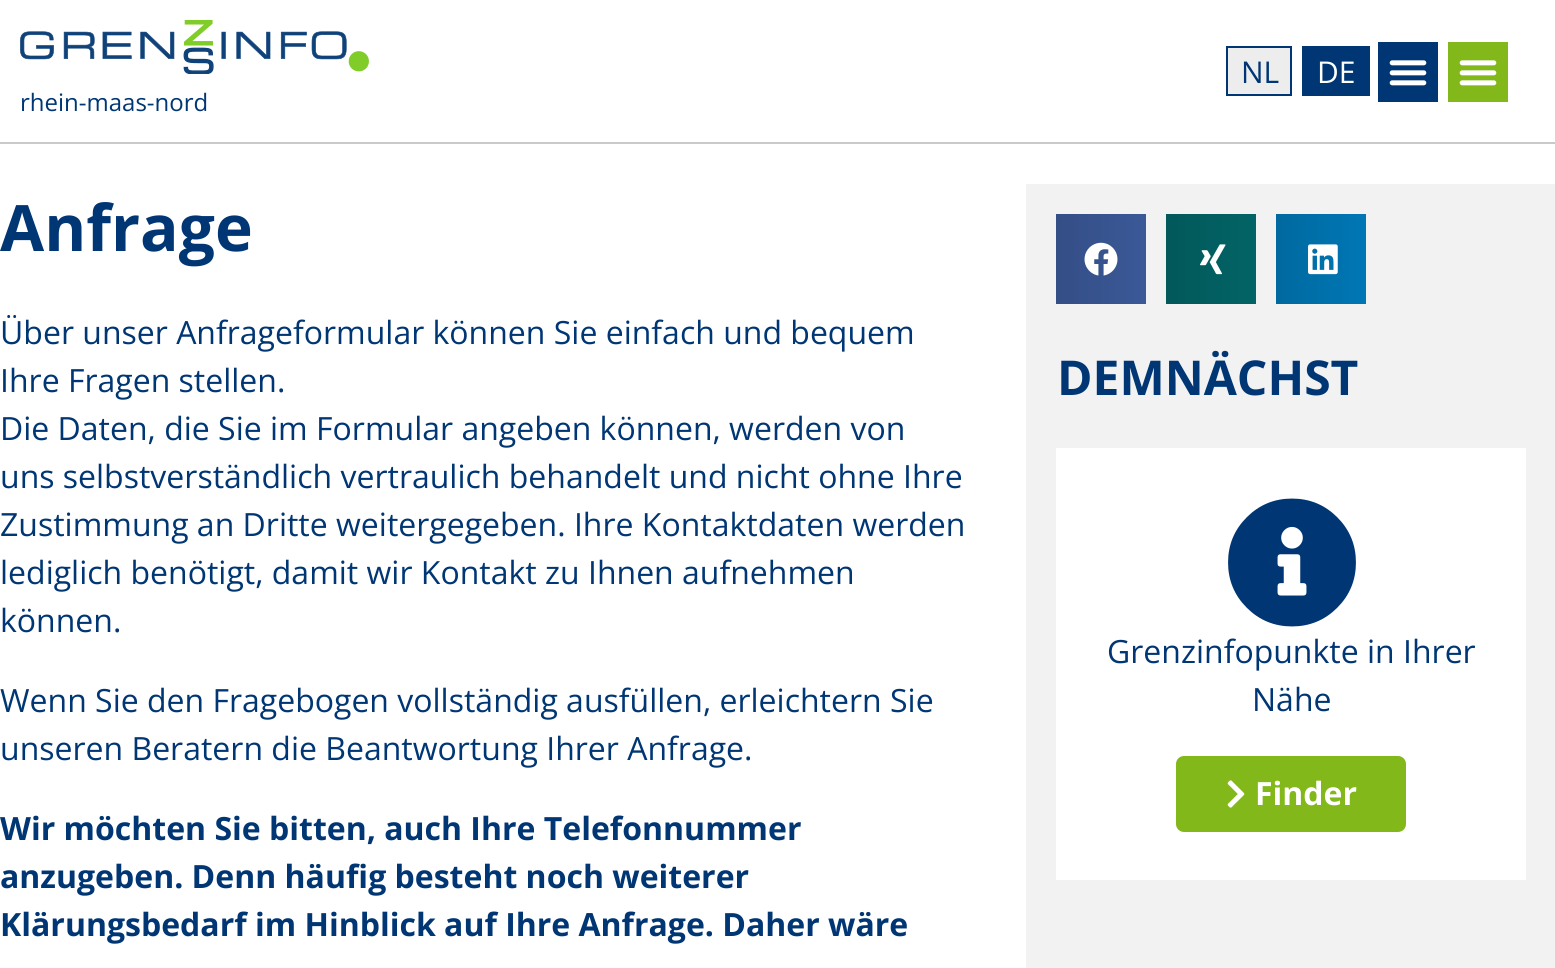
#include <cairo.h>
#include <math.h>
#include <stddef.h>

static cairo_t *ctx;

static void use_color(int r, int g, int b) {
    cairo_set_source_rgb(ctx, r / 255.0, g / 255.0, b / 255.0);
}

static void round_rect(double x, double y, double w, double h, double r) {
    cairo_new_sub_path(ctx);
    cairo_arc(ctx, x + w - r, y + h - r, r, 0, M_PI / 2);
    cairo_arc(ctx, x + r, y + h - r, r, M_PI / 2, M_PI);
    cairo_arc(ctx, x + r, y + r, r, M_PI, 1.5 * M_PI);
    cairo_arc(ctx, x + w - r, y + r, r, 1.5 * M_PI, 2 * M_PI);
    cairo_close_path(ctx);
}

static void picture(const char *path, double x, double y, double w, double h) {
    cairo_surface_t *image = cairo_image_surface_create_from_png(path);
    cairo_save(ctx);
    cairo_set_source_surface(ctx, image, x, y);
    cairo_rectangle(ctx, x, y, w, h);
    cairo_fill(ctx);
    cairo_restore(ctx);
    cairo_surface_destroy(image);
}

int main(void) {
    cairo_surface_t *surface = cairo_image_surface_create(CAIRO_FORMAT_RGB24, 1555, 968);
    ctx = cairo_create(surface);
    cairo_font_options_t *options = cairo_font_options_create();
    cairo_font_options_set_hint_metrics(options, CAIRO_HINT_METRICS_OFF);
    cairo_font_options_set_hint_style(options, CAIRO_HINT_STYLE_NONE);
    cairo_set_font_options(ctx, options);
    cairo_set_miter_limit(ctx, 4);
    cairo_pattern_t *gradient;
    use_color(255, 255, 255);
    cairo_paint(ctx);
    use_color(201, 201, 201);
    cairo_rectangle(ctx, 0, 142, 1555, 2);
    cairo_fill(ctx);
    use_color(237, 237, 237);
    cairo_rectangle(ctx, 1227, 47, 64, 48);
    cairo_fill_preserve(ctx);
    use_color(0, 54, 116);
    cairo_stroke(ctx);
    cairo_select_font_face(ctx, "Open Sans", CAIRO_FONT_SLANT_NORMAL, CAIRO_FONT_WEIGHT_NORMAL);
    cairo_set_font_size(ctx, 30);
    cairo_move_to(ctx, 1241, 83);
    cairo_show_text(ctx, "NL");
    cairo_rectangle(ctx, 1302, 46, 68, 50);
    cairo_fill(ctx);
    use_color(255, 255, 255);
    cairo_move_to(ctx, 1317, 83);
    cairo_show_text(ctx, "DE");
    use_color(0, 54, 116);
    cairo_rectangle(ctx, 1378, 42, 60, 60);
    cairo_fill(ctx);
    picture("img1.png", 1389, 60, 38, 26);
    use_color(130, 184, 26);
    cairo_rectangle(ctx, 1448, 42, 60, 60);
    cairo_fill(ctx);
    picture("img2.png", 1459, 60, 38, 26);
    picture("img3.png", 20, 20, 349, 54);
    cairo_set_font_size(ctx, 24);
    use_color(0, 54, 116);
    cairo_move_to(ctx, 20, 111);
    cairo_show_text(ctx, "rhein-maas-nord");
    cairo_select_font_face(ctx, "Open Sans", CAIRO_FONT_SLANT_NORMAL, CAIRO_FONT_WEIGHT_BOLD);
    cairo_set_font_size(ctx, 64);
    cairo_move_to(ctx, 0, 251);
    cairo_show_text(ctx, "Anfrage");
    cairo_select_font_face(ctx, "Open Sans", CAIRO_FONT_SLANT_NORMAL, CAIRO_FONT_WEIGHT_NORMAL);
    cairo_set_font_size(ctx, 32);
    cairo_move_to(ctx, 0, 344);
    cairo_show_text(ctx, "Über unser Anfrageformular können Sie einfach und bequem");
    cairo_move_to(ctx, 0, 392);
    cairo_show_text(ctx, "Ihre Fragen stellen.");
    cairo_move_to(ctx, 0, 440);
    cairo_show_text(ctx, "Die Daten, die Sie im Formular angeben können, werden von");
    cairo_move_to(ctx, 0, 488);
    cairo_show_text(ctx, "uns selbstverständlich vertraulich behandelt und nicht ohne Ihre");
    cairo_move_to(ctx, 0, 536);
    cairo_show_text(ctx, "Zustimmung an Dritte weitergegeben. Ihre Kontaktdaten werden");
    cairo_move_to(ctx, 0, 584);
    cairo_show_text(ctx, "lediglich benötigt, damit wir Kontakt zu Ihnen aufnehmen");
    cairo_move_to(ctx, 0, 632);
    cairo_show_text(ctx, "können.");
    cairo_move_to(ctx, 0, 712);
    cairo_show_text(ctx, "Wenn Sie den Fragebogen vollständig ausfüllen, erleichtern Sie");
    cairo_move_to(ctx, 0, 760);
    cairo_show_text(ctx, "unseren Beratern die Beantwortung Ihrer Anfrage.");
    cairo_select_font_face(ctx, "Open Sans", CAIRO_FONT_SLANT_NORMAL, CAIRO_FONT_WEIGHT_BOLD);
    cairo_move_to(ctx, 0, 840);
    cairo_show_text(ctx, "Wir möchten Sie bitten, auch Ihre Telefonnummer");
    cairo_move_to(ctx, 0, 888);
    cairo_show_text(ctx, "anzugeben. Denn häufig besteht noch weiterer");
    cairo_move_to(ctx, 0, 936);
    cairo_show_text(ctx, "Klärungsbedarf im Hinblick auf Ihre Anfrage. Daher wäre");
    use_color(242, 242, 242);
    cairo_rectangle(ctx, 1026, 184, 529, 784);
    cairo_fill(ctx);
    gradient = cairo_pattern_create_linear(1056, 259, 1146, 259);
    cairo_pattern_add_color_stop_rgba(gradient, 0, 0.204, 0.306, 0.525, 1);
    cairo_pattern_add_color_stop_rgba(gradient, 1, 0.231, 0.349, 0.596, 1);
    cairo_set_source(ctx, gradient);
    cairo_pattern_destroy(gradient);
    cairo_rectangle(ctx, 1056, 214, 90, 90);
    cairo_fill(ctx);
    picture("img4.png", 1084, 242, 34, 34);
    gradient = cairo_pattern_create_linear(1166, 259, 1256, 259);
    cairo_pattern_add_color_stop_rgba(gradient, 0, 0.008, 0.345, 0.353, 1);
    cairo_pattern_add_color_stop_rgba(gradient, 1, 0.008, 0.392, 0.4, 1);
    cairo_set_source(ctx, gradient);
    cairo_pattern_destroy(gradient);
    cairo_rectangle(ctx, 1166, 214, 90, 90);
    cairo_fill(ctx);
    picture("img5.png", 1200, 244, 26, 31);
    gradient = cairo_pattern_create_linear(1276, 259, 1366, 259);
    cairo_pattern_add_color_stop_rgba(gradient, 0, 0, 0.412, 0.624, 1);
    cairo_pattern_add_color_stop_rgba(gradient, 1, 0, 0.467, 0.71, 1);
    cairo_set_source(ctx, gradient);
    cairo_pattern_destroy(gradient);
    cairo_rectangle(ctx, 1276, 214, 90, 90);
    cairo_fill(ctx);
    picture("img6.png", 1308, 244, 30, 31);
    cairo_set_font_size(ctx, 48);
    use_color(0, 54, 116);
    cairo_move_to(ctx, 1057, 395);
    cairo_show_text(ctx, "DEMNÄCHST");
    use_color(255, 255, 255);
    cairo_rectangle(ctx, 1056, 448, 470, 432);
    cairo_fill(ctx);
    picture("img7.png", 1228, 498, 128, 129);
    cairo_select_font_face(ctx, "Open Sans", CAIRO_FONT_SLANT_NORMAL, CAIRO_FONT_WEIGHT_NORMAL);
    cairo_set_font_size(ctx, 32);
    use_color(0, 54, 116);
    cairo_move_to(ctx, 1107, 663);
    cairo_show_text(ctx, "Grenzinfopunkte in Ihrer");
    cairo_move_to(ctx, 1252, 711);
    cairo_show_text(ctx, "Nähe");
    use_color(130, 184, 26);
    round_rect(1177, 757, 228, 74, 7);
    cairo_fill_preserve(ctx);
    cairo_stroke(ctx);
    picture("img8.png", 1227, 780, 18, 28);
    cairo_select_font_face(ctx, "Open Sans", CAIRO_FONT_SLANT_NORMAL, CAIRO_FONT_WEIGHT_BOLD);
    use_color(255, 255, 255);
    cairo_move_to(ctx, 1255, 805);
    cairo_show_text(ctx, "Finder");
    cairo_surface_write_to_png(surface, "result.png");
    cairo_font_options_destroy(options);
    cairo_destroy(ctx);
    cairo_surface_destroy(surface);
    return 0;
}
